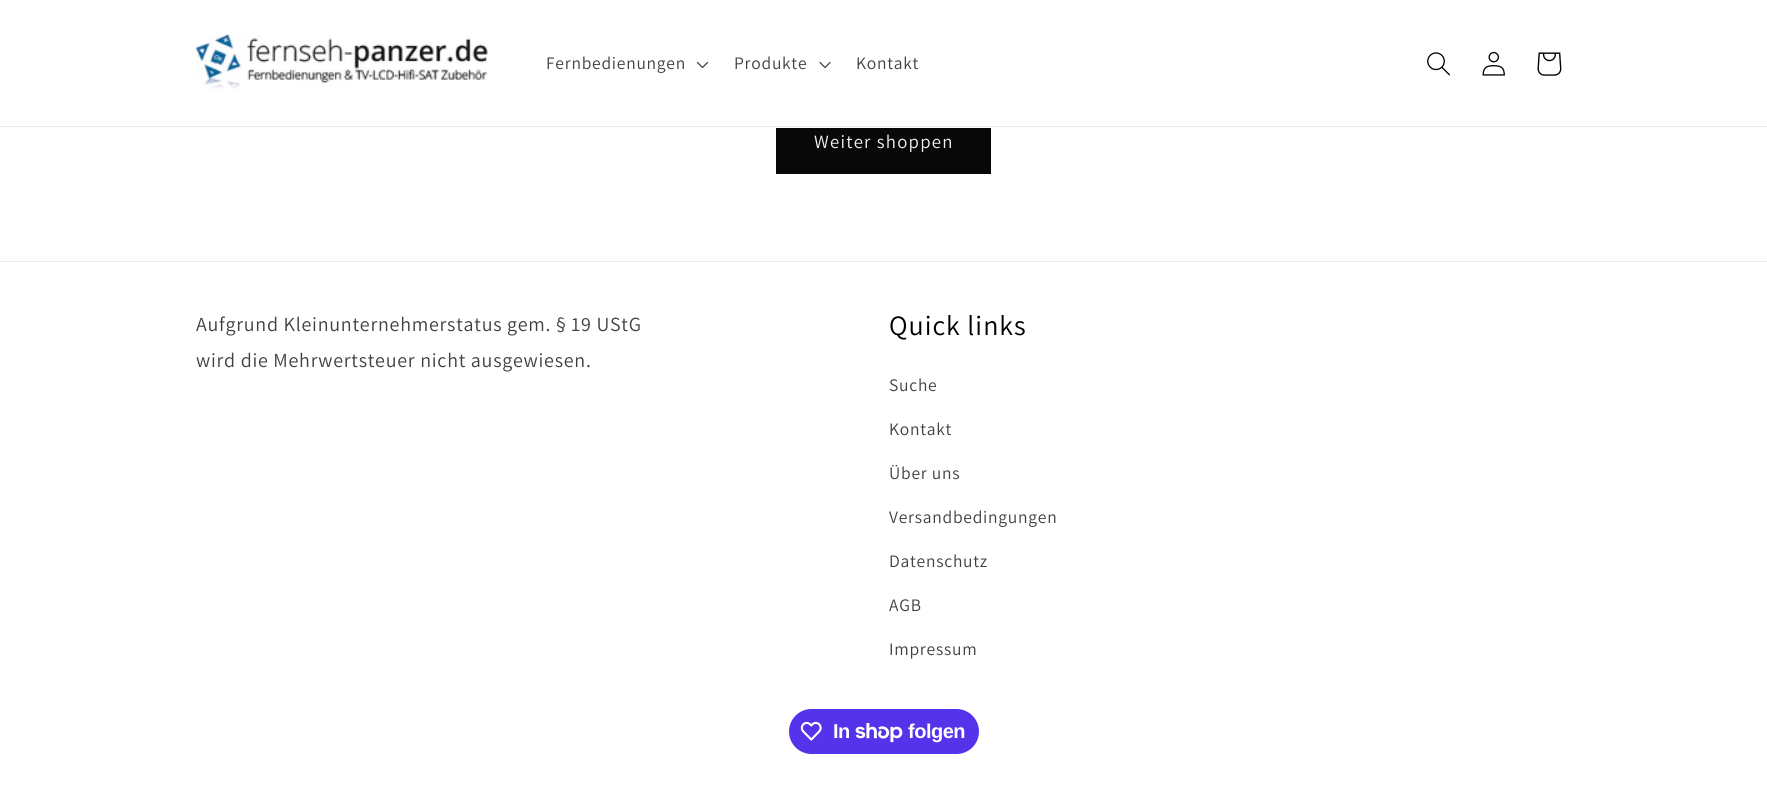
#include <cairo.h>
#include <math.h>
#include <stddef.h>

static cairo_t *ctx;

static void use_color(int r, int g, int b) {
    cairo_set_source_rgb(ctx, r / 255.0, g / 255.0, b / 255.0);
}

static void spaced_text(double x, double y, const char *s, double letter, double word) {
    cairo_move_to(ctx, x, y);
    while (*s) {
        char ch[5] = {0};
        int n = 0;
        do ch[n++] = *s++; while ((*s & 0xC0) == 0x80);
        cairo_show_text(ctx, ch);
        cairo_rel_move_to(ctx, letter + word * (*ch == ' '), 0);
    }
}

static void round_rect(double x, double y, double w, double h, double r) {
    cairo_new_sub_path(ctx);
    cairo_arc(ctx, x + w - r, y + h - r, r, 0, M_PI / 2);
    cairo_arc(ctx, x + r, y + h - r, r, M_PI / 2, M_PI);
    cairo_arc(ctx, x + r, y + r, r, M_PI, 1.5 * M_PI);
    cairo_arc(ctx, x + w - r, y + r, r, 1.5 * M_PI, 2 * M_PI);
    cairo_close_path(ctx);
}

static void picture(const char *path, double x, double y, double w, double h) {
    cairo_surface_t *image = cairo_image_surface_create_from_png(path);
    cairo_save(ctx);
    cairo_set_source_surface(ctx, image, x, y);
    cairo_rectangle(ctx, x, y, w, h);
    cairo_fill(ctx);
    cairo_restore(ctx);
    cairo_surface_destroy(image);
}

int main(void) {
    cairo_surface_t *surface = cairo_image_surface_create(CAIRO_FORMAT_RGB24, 1767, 811);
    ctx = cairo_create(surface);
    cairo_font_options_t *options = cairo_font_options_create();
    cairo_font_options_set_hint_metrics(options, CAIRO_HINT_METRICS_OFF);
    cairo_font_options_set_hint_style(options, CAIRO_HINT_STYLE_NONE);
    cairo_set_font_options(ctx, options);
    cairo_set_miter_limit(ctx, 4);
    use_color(255, 255, 255);
    cairo_paint(ctx);
    use_color(235, 235, 235);
    cairo_rectangle(ctx, 0, 126, 1767, 1);
    cairo_fill(ctx);
    picture("img1.png", 196, 34, 292, 56);
    cairo_select_font_face(ctx, "Assistant", CAIRO_FONT_SLANT_NORMAL, CAIRO_FONT_WEIGHT_NORMAL);
    cairo_set_font_size(ctx, 17.5);
    use_color(64, 64, 64);
    spaced_text(546, 69, "Fernbedienungen", 0.75, 0);
    picture("img2.png", 696, 61, 13, 8);
    spaced_text(734, 69, "Produkte", 0.75, 0);
    picture("img3.png", 819, 62, 12, 6);
    spaced_text(856, 69, "Kontakt", 0.75, 0);
    picture("img4.png", 1427, 52, 23, 24);
    picture("img5.png", 1482, 51, 23, 25);
    picture("img6.png", 1537, 52, 25, 24);
    use_color(8, 8, 8);
    cairo_rectangle(ctx, 776, 128, 215, 46);
    cairo_fill(ctx);
    cairo_set_font_size(ctx, 18.75);
    use_color(247, 241, 241);
    spaced_text(814, 148, "Weiter shoppen", 1.25, 0);
    use_color(235, 235, 235);
    cairo_rectangle(ctx, 0, 261, 1767, 1);
    cairo_fill(ctx);
    cairo_set_font_size(ctx, 20);
    use_color(64, 64, 64);
    spaced_text(196, 331, "Aufgrund Kleinunternehmerstatus gem. § 19 UStG", 0.75, 0);
    spaced_text(196, 367, "wird die Mehrwertsteuer nicht ausgewiesen.", 0.75, 0);
    cairo_set_font_size(ctx, 28);
    use_color(0, 0, 0);
    spaced_text(889, 335, "Quick links", 1, 0);
    cairo_set_font_size(ctx, 17.5);
    use_color(64, 64, 64);
    spaced_text(889, 391, "Suche", 0.75, 0);
    spaced_text(889, 435, "Kontakt", 0.75, 0);
    spaced_text(889, 479, "Über uns", 0.75, 0);
    spaced_text(889, 523, "Versandbedingungen", 0.75, 0);
    spaced_text(889, 567, "Datenschutz", 0.75, 0);
    spaced_text(889, 611, "AGB", 0.75, 0);
    spaced_text(889, 655, "Impressum", 0.75, 0);
    use_color(84, 51, 235);
    round_rect(789, 709, 190, 45, 22.5);
    cairo_fill(ctx);
    picture("img7.png", 800, 721, 22, 20);
    cairo_select_font_face(ctx, "Liberation Sans", CAIRO_FONT_SLANT_NORMAL, CAIRO_FONT_WEIGHT_BOLD);
    cairo_set_font_size(ctx, 20);
    use_color(255, 255, 255);
    spaced_text(833, 738, "In", -0.5, 0);
    picture("img8.png", 855, 723, 48, 20);
    spaced_text(908, 738, "folgen", -0.5, 0);
    cairo_surface_write_to_png(surface, "result.png");
    cairo_font_options_destroy(options);
    cairo_destroy(ctx);
    cairo_surface_destroy(surface);
    return 0;
}
